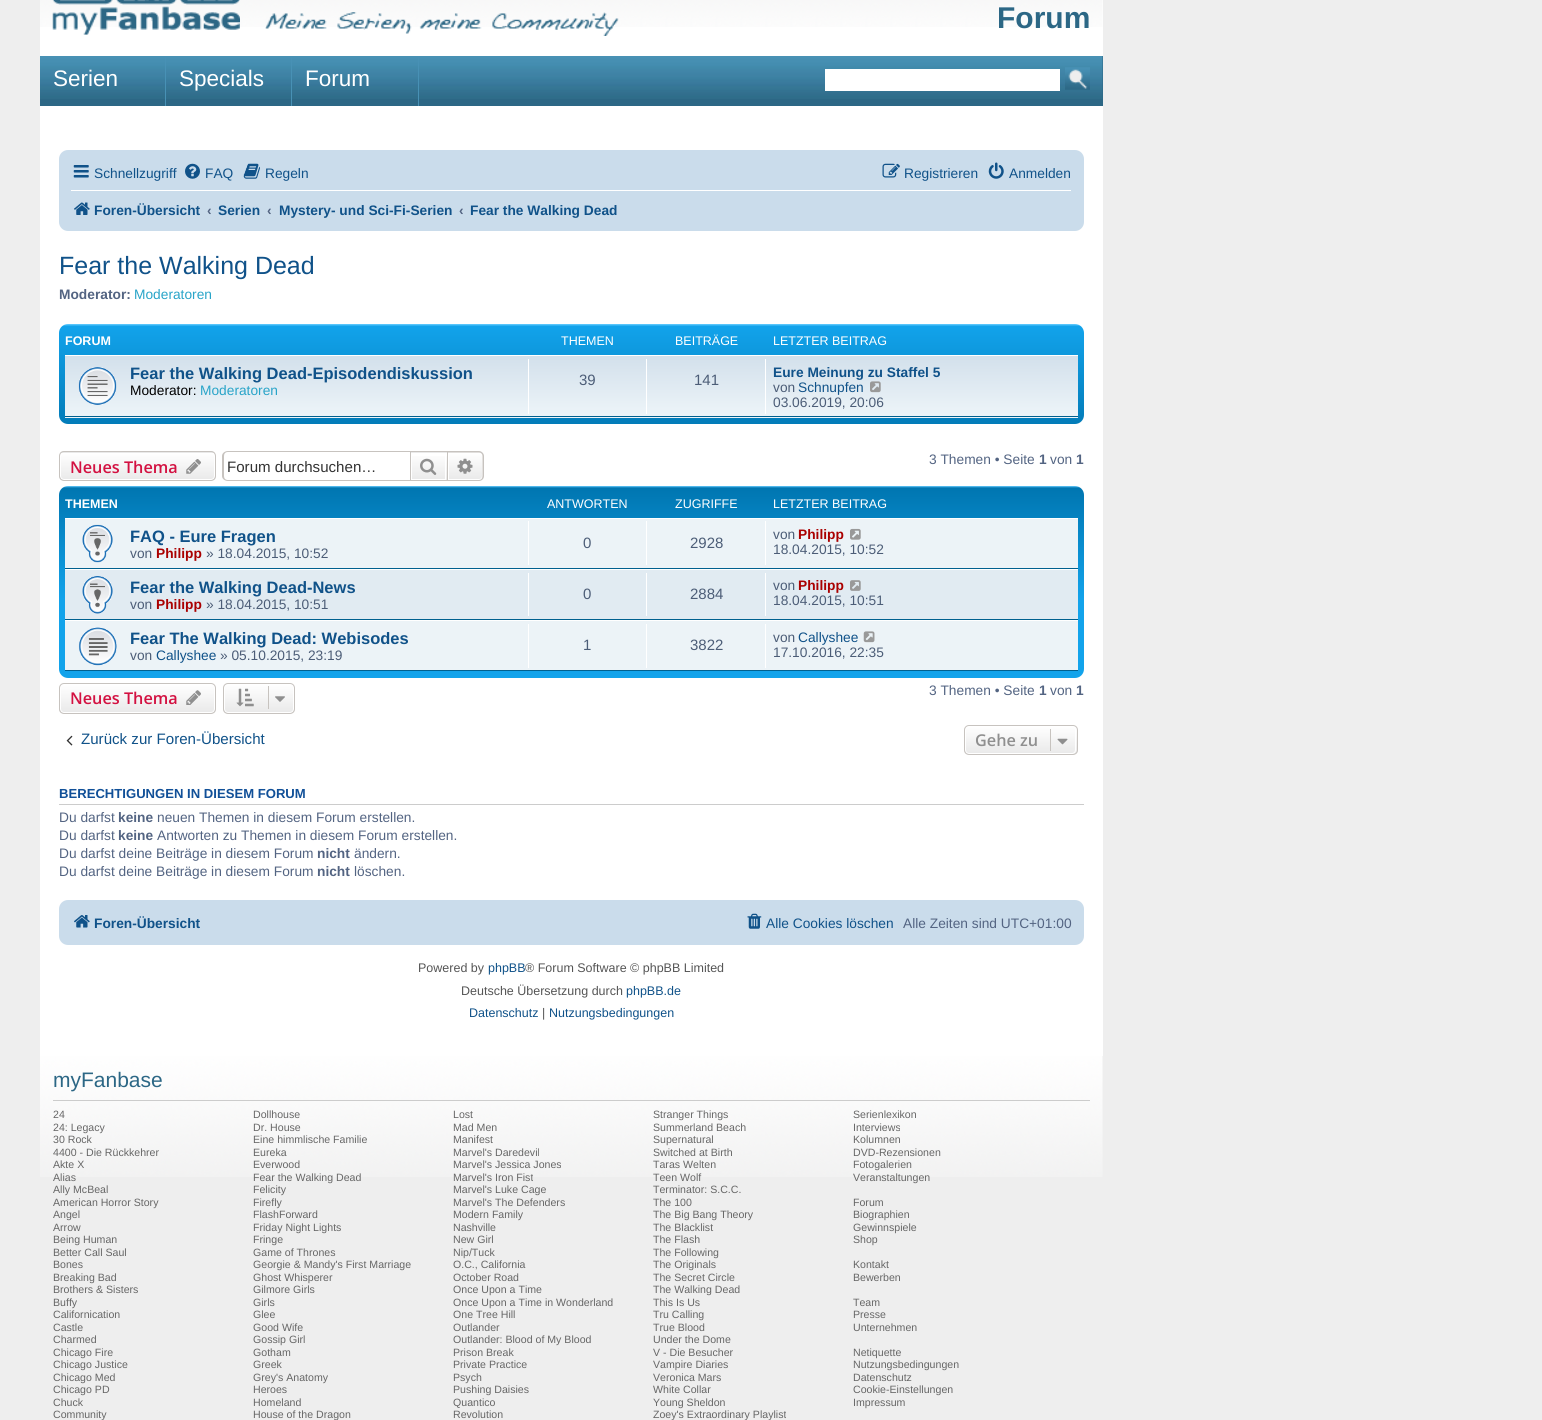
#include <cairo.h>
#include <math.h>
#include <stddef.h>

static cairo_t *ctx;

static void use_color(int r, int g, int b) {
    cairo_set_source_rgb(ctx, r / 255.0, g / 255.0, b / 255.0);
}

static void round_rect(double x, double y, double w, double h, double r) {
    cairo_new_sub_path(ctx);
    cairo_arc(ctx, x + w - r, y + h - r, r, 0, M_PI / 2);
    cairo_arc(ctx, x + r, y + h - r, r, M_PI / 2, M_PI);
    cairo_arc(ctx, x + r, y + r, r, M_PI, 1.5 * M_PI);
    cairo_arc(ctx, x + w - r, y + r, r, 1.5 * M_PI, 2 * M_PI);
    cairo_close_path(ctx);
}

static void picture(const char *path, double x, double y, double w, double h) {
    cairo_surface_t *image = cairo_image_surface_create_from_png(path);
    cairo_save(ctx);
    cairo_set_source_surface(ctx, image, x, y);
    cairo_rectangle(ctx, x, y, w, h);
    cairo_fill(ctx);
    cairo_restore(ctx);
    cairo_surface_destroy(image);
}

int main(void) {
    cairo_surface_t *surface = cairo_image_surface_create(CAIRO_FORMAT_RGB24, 1542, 1420);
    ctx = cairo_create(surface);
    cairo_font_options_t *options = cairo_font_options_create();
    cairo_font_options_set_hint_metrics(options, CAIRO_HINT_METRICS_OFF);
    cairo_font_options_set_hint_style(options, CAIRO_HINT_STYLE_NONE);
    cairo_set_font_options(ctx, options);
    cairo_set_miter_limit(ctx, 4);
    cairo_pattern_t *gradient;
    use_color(238, 238, 238);
    cairo_paint(ctx);
    use_color(255, 255, 255);
    cairo_rectangle(ctx, 40, 0, 1063, 1056);
    cairo_fill(ctx);
    picture("img1.png", 40, 0, 1063, 27);
    picture("img2.png", 52, 0, 188, 35);
    picture("img3.png", 265, 12, 354, 24);
    cairo_select_font_face(ctx, "Liberation Sans", CAIRO_FONT_SLANT_NORMAL, CAIRO_FONT_WEIGHT_BOLD);
    cairo_set_font_size(ctx, 30);
    use_color(44, 103, 133);
    cairo_move_to(ctx, 997, 28);
    cairo_show_text(ctx, "Forum");
    cairo_rectangle(ctx, 40, 56, 1063, 50);
    cairo_fill(ctx);
    picture("img4.png", 40, 56, 1063, 43);
    use_color(72, 145, 181);
    cairo_rectangle(ctx, 165, 56, 1, 50);
    cairo_fill(ctx);
    cairo_select_font_face(ctx, "Liberation Sans", CAIRO_FONT_SLANT_NORMAL, CAIRO_FONT_WEIGHT_NORMAL);
    cairo_set_font_size(ctx, 22.5);
    use_color(255, 255, 255);
    cairo_move_to(ctx, 53, 86);
    cairo_show_text(ctx, "Serien");
    use_color(72, 145, 181);
    cairo_rectangle(ctx, 291, 56, 1, 50);
    cairo_fill(ctx);
    use_color(255, 255, 255);
    cairo_move_to(ctx, 179, 86);
    cairo_show_text(ctx, "Specials");
    use_color(72, 145, 181);
    cairo_rectangle(ctx, 418, 56, 1, 50);
    cairo_fill(ctx);
    use_color(255, 255, 255);
    cairo_move_to(ctx, 305, 86);
    cairo_show_text(ctx, "Forum");
    cairo_rectangle(ctx, 825, 69, 235, 22);
    cairo_fill(ctx);
    picture("img5.png", 1065, 67, 25, 23);
    use_color(202, 220, 235);
    round_rect(59, 150, 1025, 81, 9);
    cairo_fill(ctx);
    picture("img6.png", 73, 165, 16, 13);
    cairo_set_font_size(ctx, 13.75);
    use_color(16, 82, 137);
    cairo_move_to(ctx, 94, 178);
    cairo_show_text(ctx, "Schnellzugriff");
    picture("img7.png", 185, 163, 15, 16);
    cairo_move_to(ctx, 205, 178);
    cairo_show_text(ctx, "FAQ");
    picture("img8.png", 243, 163, 17, 16);
    cairo_move_to(ctx, 265, 178);
    cairo_show_text(ctx, "Regeln");
    picture("img9.png", 882, 163, 18, 15);
    cairo_move_to(ctx, 904, 178);
    cairo_show_text(ctx, "Registrieren");
    picture("img10.png", 988, 162, 16, 17);
    cairo_move_to(ctx, 1009, 178);
    cairo_show_text(ctx, "Anmelden");
    use_color(255, 255, 255);
    cairo_rectangle(ctx, 71, 190, 1000, 1);
    cairo_fill(ctx);
    picture("img11.png", 74, 202, 16, 13);
    cairo_select_font_face(ctx, "Liberation Sans", CAIRO_FONT_SLANT_NORMAL, CAIRO_FONT_WEIGHT_BOLD);
    use_color(16, 82, 137);
    cairo_move_to(ctx, 94, 215);
    cairo_show_text(ctx, "Foren-Übersicht");
    use_color(83, 100, 130);
    cairo_move_to(ctx, 207, 215);
    cairo_show_text(ctx, "‹");
    use_color(16, 82, 137);
    cairo_move_to(ctx, 218, 215);
    cairo_show_text(ctx, "Serien");
    use_color(83, 100, 130);
    cairo_move_to(ctx, 267, 215);
    cairo_show_text(ctx, "‹");
    use_color(16, 82, 137);
    cairo_move_to(ctx, 279, 215);
    cairo_show_text(ctx, "Mystery- und Sci-Fi-Serien");
    use_color(83, 100, 130);
    cairo_move_to(ctx, 459, 215);
    cairo_show_text(ctx, "‹");
    use_color(16, 82, 137);
    cairo_move_to(ctx, 470, 215);
    cairo_show_text(ctx, "Fear the Walking Dead");
    cairo_select_font_face(ctx, "Liberation Sans", CAIRO_FONT_SLANT_NORMAL, CAIRO_FONT_WEIGHT_NORMAL);
    cairo_set_font_size(ctx, 25);
    cairo_move_to(ctx, 59, 274);
    cairo_show_text(ctx, "Fear the Walking Dead");
    cairo_select_font_face(ctx, "Liberation Sans", CAIRO_FONT_SLANT_NORMAL, CAIRO_FONT_WEIGHT_BOLD);
    cairo_set_font_size(ctx, 13.75);
    use_color(83, 100, 130);
    cairo_move_to(ctx, 59, 299);
    cairo_show_text(ctx, "Moderator:");
    cairo_select_font_face(ctx, "Liberation Sans", CAIRO_FONT_SLANT_NORMAL, CAIRO_FONT_WEIGHT_NORMAL);
    use_color(40, 164, 200);
    cairo_move_to(ctx, 134, 299);
    cairo_show_text(ctx, "Moderatoren");
    gradient = cairo_pattern_create_linear(571, 324, 571, 439);
    cairo_pattern_add_color_stop_rgba(gradient, 0, 0.416, 0.808, 1, 1);
    cairo_pattern_add_color_stop_rgba(gradient, 0.02, 0.071, 0.639, 0.922, 1);
    cairo_pattern_add_color_stop_rgba(gradient, 1, 0, 0.463, 0.694, 1);
    cairo_set_source(ctx, gradient);
    cairo_pattern_destroy(gradient);
    round_rect(59, 324, 1025, 100, 9);
    cairo_fill(ctx);
    cairo_select_font_face(ctx, "Liberation Sans", CAIRO_FONT_SLANT_NORMAL, CAIRO_FONT_WEIGHT_BOLD);
    cairo_set_font_size(ctx, 12.5);
    use_color(255, 255, 255);
    cairo_move_to(ctx, 65, 345);
    cairo_show_text(ctx, "FORUM");
    cairo_select_font_face(ctx, "Liberation Sans", CAIRO_FONT_SLANT_NORMAL, CAIRO_FONT_WEIGHT_NORMAL);
    cairo_move_to(ctx, 561, 345);
    cairo_show_text(ctx, "THEMEN");
    cairo_move_to(ctx, 675, 345);
    cairo_show_text(ctx, "BEITRÄGE");
    cairo_move_to(ctx, 773, 345);
    cairo_show_text(ctx, "LETZTER BEITRAG");
    gradient = cairo_pattern_create_linear(571, 355, 571, 418);
    cairo_pattern_add_color_stop_rgba(gradient, 0, 0.824, 0.878, 0.922, 1);
    cairo_pattern_add_color_stop_rgba(gradient, 1, 0.933, 0.961, 0.976, 1);
    cairo_set_source(ctx, gradient);
    cairo_pattern_destroy(gradient);
    cairo_rectangle(ctx, 65, 356, 1013, 62);
    cairo_fill(ctx);
    use_color(255, 255, 255);
    cairo_rectangle(ctx, 65, 355, 1013, 1);
    cairo_fill(ctx);
    use_color(0, 96, 143);
    cairo_rectangle(ctx, 65, 416, 1013, 1);
    cairo_fill(ctx);
    picture("img12.png", 78, 367, 39, 38);
    cairo_select_font_face(ctx, "Liberation Sans", CAIRO_FONT_SLANT_NORMAL, CAIRO_FONT_WEIGHT_BOLD);
    cairo_set_font_size(ctx, 16.5);
    use_color(16, 82, 137);
    cairo_move_to(ctx, 130, 379);
    cairo_show_text(ctx, "Fear the Walking Dead-Episodendiskussion");
    cairo_select_font_face(ctx, "Liberation Sans", CAIRO_FONT_SLANT_NORMAL, CAIRO_FONT_WEIGHT_NORMAL);
    cairo_set_font_size(ctx, 13.75);
    use_color(0, 0, 0);
    cairo_move_to(ctx, 130, 395);
    cairo_show_text(ctx, "Moderator:");
    use_color(40, 164, 200);
    cairo_move_to(ctx, 200, 395);
    cairo_show_text(ctx, "Moderatoren");
    use_color(255, 255, 255);
    cairo_rectangle(ctx, 528, 359, 1, 55);
    cairo_fill(ctx);
    cairo_set_font_size(ctx, 15);
    use_color(76, 93, 119);
    cairo_move_to(ctx, 579, 385);
    cairo_show_text(ctx, "39");
    use_color(255, 255, 255);
    cairo_rectangle(ctx, 646, 359, 1, 55);
    cairo_fill(ctx);
    use_color(76, 93, 119);
    cairo_move_to(ctx, 694, 385);
    cairo_show_text(ctx, "141");
    use_color(255, 255, 255);
    cairo_rectangle(ctx, 765, 359, 1, 55);
    cairo_fill(ctx);
    cairo_select_font_face(ctx, "Liberation Sans", CAIRO_FONT_SLANT_NORMAL, CAIRO_FONT_WEIGHT_BOLD);
    cairo_set_font_size(ctx, 13.75);
    use_color(16, 82, 137);
    cairo_move_to(ctx, 773, 377);
    cairo_show_text(ctx, "Eure Meinung zu Staffel 5");
    cairo_select_font_face(ctx, "Liberation Sans", CAIRO_FONT_SLANT_NORMAL, CAIRO_FONT_WEIGHT_NORMAL);
    use_color(76, 93, 119);
    cairo_move_to(ctx, 773, 392);
    cairo_show_text(ctx, "von");
    use_color(16, 82, 137);
    cairo_move_to(ctx, 798, 392);
    cairo_show_text(ctx, "Schnupfen");
    picture("img13.png", 870, 381, 11, 12);
    use_color(76, 93, 119);
    cairo_move_to(ctx, 773, 407);
    cairo_show_text(ctx, "03.06.2019, 20:06");
    cairo_save(ctx);
    round_rect(59, 451, 157, 30, 5);
    cairo_clip(ctx);
    gradient = cairo_pattern_create_linear(138, 425, 138, 453);
    cairo_pattern_add_color_stop_rgba(gradient, 0, 1, 1, 1, 1);
    cairo_pattern_add_color_stop_rgba(gradient, 1, 0.914, 0.914, 0.914, 1);
    cairo_set_source(ctx, gradient);
    cairo_pattern_destroy(gradient);
    cairo_rectangle(ctx, 59, 451, 157, 2);
    cairo_fill(ctx);
    gradient = cairo_pattern_create_linear(138, 453, 138, 480);
    cairo_pattern_add_color_stop_rgba(gradient, 0, 1, 1, 1, 1);
    cairo_pattern_add_color_stop_rgba(gradient, 1, 0.914, 0.914, 0.914, 1);
    cairo_set_source(ctx, gradient);
    cairo_pattern_destroy(gradient);
    cairo_rectangle(ctx, 59, 453, 157, 27);
    cairo_fill(ctx);
    cairo_restore(ctx);
    round_rect(60.5, 453.5, 154, 26, 3.5);
    use_color(255, 255, 255);
    cairo_set_line_width(ctx, 1);
    cairo_stroke(ctx);
    round_rect(59.5, 451.5, 156, 29, 4.5);
    use_color(199, 195, 191);
    cairo_stroke(ctx);
    cairo_select_font_face(ctx, "Open Sans SemiBold", CAIRO_FONT_SLANT_NORMAL, CAIRO_FONT_WEIGHT_NORMAL);
    cairo_set_font_size(ctx, 16.25);
    use_color(211, 17, 65);
    cairo_move_to(ctx, 70, 473);
    cairo_show_text(ctx, "Neues Thema");
    picture("img14.png", 186, 459, 15, 15);
    use_color(199, 195, 191);
    cairo_set_fill_rule(ctx, CAIRO_FILL_RULE_EVEN_ODD);
    cairo_new_path(ctx);
    cairo_move_to(ctx, 228, 451);
    cairo_line_to(ctx, 410, 451);
    cairo_line_to(ctx, 410, 481);
    cairo_line_to(ctx, 228, 481);
    cairo_curve_to(ctx, 225, 481, 222, 479, 222, 476);
    cairo_line_to(ctx, 222, 456);
    cairo_curve_to(ctx, 222, 453, 225, 451, 228, 451);
    cairo_close_path(ctx);
    cairo_move_to(ctx, 228, 452);
    cairo_line_to(ctx, 410, 452);
    cairo_line_to(ctx, 410, 480);
    cairo_line_to(ctx, 228, 480);
    cairo_curve_to(ctx, 225, 480, 224, 478, 224, 476);
    cairo_line_to(ctx, 224, 456);
    cairo_curve_to(ctx, 224, 454, 225, 452, 228, 452);
    cairo_close_path(ctx);
    cairo_fill(ctx);
    cairo_select_font_face(ctx, "Liberation Sans", CAIRO_FONT_SLANT_NORMAL, CAIRO_FONT_WEIGHT_NORMAL);
    cairo_set_font_size(ctx, 15.1);
    use_color(51, 51, 51);
    cairo_move_to(ctx, 227, 472);
    cairo_show_text(ctx, "Forum durchsuchen…");
    use_color(233, 233, 233);
    cairo_rectangle(ctx, 411, 452, 36, 1);
    cairo_fill(ctx);
    gradient = cairo_pattern_create_linear(429, 453, 429, 480);
    cairo_pattern_add_color_stop_rgba(gradient, 0, 1, 1, 1, 1);
    cairo_pattern_add_color_stop_rgba(gradient, 1, 0.914, 0.914, 0.914, 1);
    cairo_set_source(ctx, gradient);
    cairo_pattern_destroy(gradient);
    cairo_rectangle(ctx, 412, 456, 35, 24);
    cairo_fill(ctx);
    cairo_rectangle(ctx, 411.5, 453.5, 34, 26);
    use_color(255, 255, 255);
    cairo_stroke(ctx);
    cairo_rectangle(ctx, 410.5, 451.5, 37, 29);
    use_color(199, 195, 191);
    cairo_stroke(ctx);
    picture("img15.png", 420, 458, 17, 17);
    gradient = cairo_pattern_create_linear(465, 453, 465, 480);
    cairo_pattern_add_color_stop_rgba(gradient, 0, 1, 1, 1, 1);
    cairo_pattern_add_color_stop_rgba(gradient, 1, 0.914, 0.914, 0.914, 1);
    cairo_set_source(ctx, gradient);
    cairo_pattern_destroy(gradient);
    cairo_new_path(ctx);
    cairo_move_to(ctx, 448.5, 453.5);
    cairo_line_to(ctx, 479, 453.5);
    cairo_curve_to(ctx, 481, 453.5, 482.5, 455, 482.5, 457);
    cairo_line_to(ctx, 482.5, 476);
    cairo_curve_to(ctx, 482.5, 478, 481, 479.5, 479, 479.5);
    cairo_line_to(ctx, 448.5, 479.5);
    cairo_close_path(ctx);
    cairo_fill_preserve(ctx);
    use_color(255, 255, 255);
    cairo_stroke(ctx);
    use_color(199, 195, 191);
    cairo_new_path(ctx);
    cairo_move_to(ctx, 447.5, 451);
    cairo_line_to(ctx, 479, 451);
    cairo_curve_to(ctx, 481.5, 451, 484, 453.5, 484, 456);
    cairo_line_to(ctx, 484, 476);
    cairo_curve_to(ctx, 484, 479, 481.5, 481, 479, 481);
    cairo_line_to(ctx, 447.5, 481);
    cairo_close_path(ctx);
    cairo_move_to(ctx, 447.5, 452.5);
    cairo_line_to(ctx, 479, 452.5);
    cairo_curve_to(ctx, 481, 452.5, 482.5, 454, 482.5, 456);
    cairo_line_to(ctx, 482.5, 476);
    cairo_curve_to(ctx, 482.5, 478.5, 481, 480, 479, 480);
    cairo_line_to(ctx, 447.5, 480);
    cairo_close_path(ctx);
    cairo_fill(ctx);
    picture("img16.png", 457, 458, 16, 16);
    cairo_set_font_size(ctx, 13.75);
    use_color(83, 100, 130);
    cairo_move_to(ctx, 929, 464);
    cairo_show_text(ctx, "3 Themen • Seite");
    cairo_select_font_face(ctx, "Liberation Sans", CAIRO_FONT_SLANT_NORMAL, CAIRO_FONT_WEIGHT_BOLD);
    cairo_move_to(ctx, 1039, 464);
    cairo_show_text(ctx, "1");
    cairo_select_font_face(ctx, "Liberation Sans", CAIRO_FONT_SLANT_NORMAL, CAIRO_FONT_WEIGHT_NORMAL);
    cairo_move_to(ctx, 1050, 464);
    cairo_show_text(ctx, "von");
    cairo_select_font_face(ctx, "Liberation Sans", CAIRO_FONT_SLANT_NORMAL, CAIRO_FONT_WEIGHT_BOLD);
    cairo_move_to(ctx, 1076, 464);
    cairo_show_text(ctx, "1");
    gradient = cairo_pattern_create_linear(571, 486, 571, 678);
    cairo_pattern_add_color_stop_rgba(gradient, 0, 0.416, 0.808, 1, 1);
    cairo_pattern_add_color_stop_rgba(gradient, 0.01, 0, 0.463, 0.694, 1);
    cairo_pattern_add_color_stop_rgba(gradient, 0.6, 0.071, 0.639, 0.922, 1);
    cairo_pattern_add_color_stop_rgba(gradient, 1, 0.071, 0.639, 0.922, 1);
    cairo_set_source(ctx, gradient);
    cairo_pattern_destroy(gradient);
    round_rect(59, 486, 1025, 192, 9);
    cairo_fill(ctx);
    cairo_set_font_size(ctx, 12.5);
    use_color(255, 255, 255);
    cairo_move_to(ctx, 65, 508);
    cairo_show_text(ctx, "THEMEN");
    cairo_select_font_face(ctx, "Liberation Sans", CAIRO_FONT_SLANT_NORMAL, CAIRO_FONT_WEIGHT_NORMAL);
    cairo_move_to(ctx, 547, 508);
    cairo_show_text(ctx, "ANTWORTEN");
    cairo_move_to(ctx, 675, 508);
    cairo_show_text(ctx, "ZUGRIFFE");
    cairo_move_to(ctx, 773, 508);
    cairo_show_text(ctx, "LETZTER BEITRAG");
    use_color(236, 243, 247);
    cairo_rectangle(ctx, 65, 519, 1013, 49);
    cairo_fill(ctx);
    use_color(255, 255, 255);
    cairo_rectangle(ctx, 65, 518, 1013, 1);
    cairo_fill(ctx);
    use_color(0, 96, 143);
    cairo_rectangle(ctx, 65, 568, 1013, 1);
    cairo_fill(ctx);
    picture("img17.png", 82, 524, 31, 39);
    cairo_select_font_face(ctx, "Liberation Sans", CAIRO_FONT_SLANT_NORMAL, CAIRO_FONT_WEIGHT_BOLD);
    cairo_set_font_size(ctx, 16.5);
    use_color(16, 82, 137);
    cairo_move_to(ctx, 130, 542);
    cairo_show_text(ctx, "FAQ - Eure Fragen");
    cairo_select_font_face(ctx, "Liberation Sans", CAIRO_FONT_SLANT_NORMAL, CAIRO_FONT_WEIGHT_NORMAL);
    cairo_set_font_size(ctx, 13.75);
    use_color(76, 93, 119);
    cairo_move_to(ctx, 130, 558);
    cairo_show_text(ctx, "von");
    cairo_select_font_face(ctx, "Liberation Sans", CAIRO_FONT_SLANT_NORMAL, CAIRO_FONT_WEIGHT_BOLD);
    use_color(170, 0, 0);
    cairo_move_to(ctx, 156, 558);
    cairo_show_text(ctx, "Philipp");
    cairo_select_font_face(ctx, "Liberation Sans", CAIRO_FONT_SLANT_NORMAL, CAIRO_FONT_WEIGHT_NORMAL);
    use_color(76, 93, 119);
    cairo_move_to(ctx, 206, 558);
    cairo_show_text(ctx, "» 18.04.2015, 10:52");
    use_color(255, 255, 255);
    cairo_rectangle(ctx, 528, 521, 1, 44);
    cairo_fill(ctx);
    cairo_set_font_size(ctx, 15);
    use_color(76, 93, 119);
    cairo_move_to(ctx, 583, 548);
    cairo_show_text(ctx, "0");
    use_color(255, 255, 255);
    cairo_rectangle(ctx, 646, 521, 1, 44);
    cairo_fill(ctx);
    use_color(76, 93, 119);
    cairo_move_to(ctx, 690, 548);
    cairo_show_text(ctx, "2928");
    use_color(255, 255, 255);
    cairo_rectangle(ctx, 765, 521, 1, 44);
    cairo_fill(ctx);
    cairo_set_font_size(ctx, 13.75);
    use_color(76, 93, 119);
    cairo_move_to(ctx, 773, 539);
    cairo_show_text(ctx, "von");
    cairo_select_font_face(ctx, "Liberation Sans", CAIRO_FONT_SLANT_NORMAL, CAIRO_FONT_WEIGHT_BOLD);
    use_color(170, 0, 0);
    cairo_move_to(ctx, 798, 539);
    cairo_show_text(ctx, "Philipp");
    picture("img18.png", 850, 528, 11, 12);
    cairo_select_font_face(ctx, "Liberation Sans", CAIRO_FONT_SLANT_NORMAL, CAIRO_FONT_WEIGHT_NORMAL);
    use_color(76, 93, 119);
    cairo_move_to(ctx, 773, 554);
    cairo_show_text(ctx, "18.04.2015, 10:52");
    use_color(225, 235, 242);
    cairo_rectangle(ctx, 65, 570, 1013, 49);
    cairo_fill(ctx);
    use_color(255, 255, 255);
    cairo_rectangle(ctx, 65, 569, 1013, 1);
    cairo_fill(ctx);
    use_color(0, 96, 143);
    cairo_rectangle(ctx, 65, 619, 1013, 1);
    cairo_fill(ctx);
    picture("img19.png", 82, 576, 31, 38);
    cairo_select_font_face(ctx, "Liberation Sans", CAIRO_FONT_SLANT_NORMAL, CAIRO_FONT_WEIGHT_BOLD);
    cairo_set_font_size(ctx, 16.5);
    use_color(16, 82, 137);
    cairo_move_to(ctx, 130, 593);
    cairo_show_text(ctx, "Fear the Walking Dead-News");
    cairo_select_font_face(ctx, "Liberation Sans", CAIRO_FONT_SLANT_NORMAL, CAIRO_FONT_WEIGHT_NORMAL);
    cairo_set_font_size(ctx, 13.75);
    use_color(76, 93, 119);
    cairo_move_to(ctx, 130, 609);
    cairo_show_text(ctx, "von");
    cairo_select_font_face(ctx, "Liberation Sans", CAIRO_FONT_SLANT_NORMAL, CAIRO_FONT_WEIGHT_BOLD);
    use_color(170, 0, 0);
    cairo_move_to(ctx, 156, 609);
    cairo_show_text(ctx, "Philipp");
    cairo_select_font_face(ctx, "Liberation Sans", CAIRO_FONT_SLANT_NORMAL, CAIRO_FONT_WEIGHT_NORMAL);
    use_color(76, 93, 119);
    cairo_move_to(ctx, 206, 609);
    cairo_show_text(ctx, "» 18.04.2015, 10:51");
    use_color(255, 255, 255);
    cairo_rectangle(ctx, 528, 573, 1, 43);
    cairo_fill(ctx);
    cairo_set_font_size(ctx, 15);
    use_color(76, 93, 119);
    cairo_move_to(ctx, 583, 599);
    cairo_show_text(ctx, "0");
    use_color(255, 255, 255);
    cairo_rectangle(ctx, 646, 573, 1, 43);
    cairo_fill(ctx);
    use_color(76, 93, 119);
    cairo_move_to(ctx, 690, 599);
    cairo_show_text(ctx, "2884");
    use_color(255, 255, 255);
    cairo_rectangle(ctx, 765, 573, 1, 43);
    cairo_fill(ctx);
    cairo_set_font_size(ctx, 13.75);
    use_color(76, 93, 119);
    cairo_move_to(ctx, 773, 590);
    cairo_show_text(ctx, "von");
    cairo_select_font_face(ctx, "Liberation Sans", CAIRO_FONT_SLANT_NORMAL, CAIRO_FONT_WEIGHT_BOLD);
    use_color(170, 0, 0);
    cairo_move_to(ctx, 798, 590);
    cairo_show_text(ctx, "Philipp");
    picture("img20.png", 850, 580, 11, 11);
    cairo_select_font_face(ctx, "Liberation Sans", CAIRO_FONT_SLANT_NORMAL, CAIRO_FONT_WEIGHT_NORMAL);
    use_color(76, 93, 119);
    cairo_move_to(ctx, 773, 605);
    cairo_show_text(ctx, "18.04.2015, 10:51");
    use_color(236, 243, 247);
    cairo_rectangle(ctx, 65, 621, 1013, 49);
    cairo_fill(ctx);
    use_color(255, 255, 255);
    cairo_rectangle(ctx, 65, 620, 1013, 1);
    cairo_fill(ctx);
    use_color(0, 96, 143);
    cairo_rectangle(ctx, 65, 670, 1013, 1);
    cairo_fill(ctx);
    picture("img21.png", 78, 627, 39, 39);
    cairo_select_font_face(ctx, "Liberation Sans", CAIRO_FONT_SLANT_NORMAL, CAIRO_FONT_WEIGHT_BOLD);
    cairo_set_font_size(ctx, 16.5);
    use_color(16, 82, 137);
    cairo_move_to(ctx, 130, 644);
    cairo_show_text(ctx, "Fear The Walking Dead: Webisodes");
    cairo_select_font_face(ctx, "Liberation Sans", CAIRO_FONT_SLANT_NORMAL, CAIRO_FONT_WEIGHT_NORMAL);
    cairo_set_font_size(ctx, 13.75);
    use_color(76, 93, 119);
    cairo_move_to(ctx, 130, 660);
    cairo_show_text(ctx, "von");
    use_color(16, 82, 137);
    cairo_move_to(ctx, 156, 660);
    cairo_show_text(ctx, "Callyshee");
    use_color(76, 93, 119);
    cairo_move_to(ctx, 220, 660);
    cairo_show_text(ctx, "» 05.10.2015, 23:19");
    use_color(255, 255, 255);
    cairo_rectangle(ctx, 528, 624, 1, 44);
    cairo_fill(ctx);
    cairo_set_font_size(ctx, 15);
    use_color(76, 93, 119);
    cairo_move_to(ctx, 583, 650);
    cairo_show_text(ctx, "1");
    use_color(255, 255, 255);
    cairo_rectangle(ctx, 646, 624, 1, 44);
    cairo_fill(ctx);
    use_color(76, 93, 119);
    cairo_move_to(ctx, 690, 650);
    cairo_show_text(ctx, "3822");
    use_color(255, 255, 255);
    cairo_rectangle(ctx, 765, 624, 1, 44);
    cairo_fill(ctx);
    cairo_set_font_size(ctx, 13.75);
    use_color(76, 93, 119);
    cairo_move_to(ctx, 773, 642);
    cairo_show_text(ctx, "von");
    use_color(16, 82, 137);
    cairo_move_to(ctx, 798, 642);
    cairo_show_text(ctx, "Callyshee");
    picture("img22.png", 863, 631, 12, 12);
    use_color(76, 93, 119);
    cairo_move_to(ctx, 773, 657);
    cairo_show_text(ctx, "17.10.2016, 22:35");
    cairo_save(ctx);
    cairo_set_fill_rule(ctx, CAIRO_FILL_RULE_WINDING);
    round_rect(59, 683, 157, 31, 5);
    cairo_clip(ctx);
    gradient = cairo_pattern_create_linear(138, 684, 138, 713);
    cairo_pattern_add_color_stop_rgba(gradient, 0, 1, 1, 1, 1);
    cairo_pattern_add_color_stop_rgba(gradient, 1, 0.914, 0.914, 0.914, 1);
    cairo_set_source(ctx, gradient);
    cairo_pattern_destroy(gradient);
    cairo_rectangle(ctx, 59, 684, 157, 29);
    cairo_fill(ctx);
    cairo_restore(ctx);
    round_rect(60.5, 684.5, 154, 28, 3.5);
    use_color(255, 255, 255);
    cairo_stroke(ctx);
    round_rect(59.5, 683.5, 156, 30, 4.5);
    use_color(199, 195, 191);
    cairo_stroke(ctx);
    cairo_select_font_face(ctx, "Open Sans SemiBold", CAIRO_FONT_SLANT_NORMAL, CAIRO_FONT_WEIGHT_NORMAL);
    cairo_set_font_size(ctx, 16.25);
    use_color(211, 17, 65);
    cairo_move_to(ctx, 70, 704);
    cairo_show_text(ctx, "Neues Thema");
    picture("img23.png", 186, 690, 15, 15);
    cairo_save(ctx);
    cairo_set_fill_rule(ctx, CAIRO_FILL_RULE_WINDING);
    round_rect(223, 683, 72, 31, 5);
    cairo_clip(ctx);
    gradient = cairo_pattern_create_linear(259, 684, 259, 713);
    cairo_pattern_add_color_stop_rgba(gradient, 0, 1, 1, 1, 1);
    cairo_pattern_add_color_stop_rgba(gradient, 1, 0.914, 0.914, 0.914, 1);
    cairo_set_source(ctx, gradient);
    cairo_pattern_destroy(gradient);
    cairo_rectangle(ctx, 223, 684, 72, 29);
    cairo_fill(ctx);
    cairo_restore(ctx);
    round_rect(224.5, 684.5, 69, 28, 3.5);
    use_color(255, 255, 255);
    cairo_stroke(ctx);
    round_rect(223.5, 683.5, 71, 30, 4.5);
    use_color(199, 195, 191);
    cairo_stroke(ctx);
    picture("img24.png", 236, 688, 18, 19);
    cairo_rectangle(ctx, 268, 686, 1, 23);
    cairo_fill(ctx);
    picture("img25.png", 275, 696, 10, 6);
    cairo_select_font_face(ctx, "Liberation Sans", CAIRO_FONT_SLANT_NORMAL, CAIRO_FONT_WEIGHT_NORMAL);
    cairo_set_font_size(ctx, 13.75);
    use_color(83, 100, 130);
    cairo_move_to(ctx, 929, 695);
    cairo_show_text(ctx, "3 Themen • Seite");
    cairo_select_font_face(ctx, "Liberation Sans", CAIRO_FONT_SLANT_NORMAL, CAIRO_FONT_WEIGHT_BOLD);
    cairo_move_to(ctx, 1039, 695);
    cairo_show_text(ctx, "1");
    cairo_select_font_face(ctx, "Liberation Sans", CAIRO_FONT_SLANT_NORMAL, CAIRO_FONT_WEIGHT_NORMAL);
    cairo_move_to(ctx, 1050, 695);
    cairo_show_text(ctx, "von");
    cairo_select_font_face(ctx, "Liberation Sans", CAIRO_FONT_SLANT_NORMAL, CAIRO_FONT_WEIGHT_BOLD);
    cairo_move_to(ctx, 1076, 695);
    cairo_show_text(ctx, "1");
    picture("img26.png", 66, 735, 7, 11);
    cairo_select_font_face(ctx, "Liberation Sans", CAIRO_FONT_SLANT_NORMAL, CAIRO_FONT_WEIGHT_NORMAL);
    cairo_set_font_size(ctx, 15.1);
    use_color(16, 82, 137);
    cairo_move_to(ctx, 81, 744);
    cairo_show_text(ctx, "Zurück zur Foren-Übersicht");
    cairo_save(ctx);
    cairo_set_fill_rule(ctx, CAIRO_FILL_RULE_WINDING);
    round_rect(964, 725, 114, 30, 5);
    cairo_clip(ctx);
    gradient = cairo_pattern_create_linear(1021, 726, 1021, 754);
    cairo_pattern_add_color_stop_rgba(gradient, 0, 1, 1, 1, 1);
    cairo_pattern_add_color_stop_rgba(gradient, 1, 0.914, 0.914, 0.914, 1);
    cairo_set_source(ctx, gradient);
    cairo_pattern_destroy(gradient);
    cairo_rectangle(ctx, 964, 726, 114, 28);
    cairo_fill(ctx);
    cairo_restore(ctx);
    round_rect(965.5, 726.5, 110, 27, 3.5);
    use_color(255, 255, 255);
    cairo_stroke(ctx);
    round_rect(964.5, 725.5, 113, 29, 4.5);
    use_color(199, 195, 191);
    cairo_stroke(ctx);
    cairo_select_font_face(ctx, "Open Sans SemiBold", CAIRO_FONT_SLANT_NORMAL, CAIRO_FONT_WEIGHT_NORMAL);
    cairo_set_font_size(ctx, 16.25);
    use_color(143, 143, 143);
    cairo_move_to(ctx, 975, 746);
    cairo_show_text(ctx, "Gehe zu");
    use_color(199, 195, 191);
    cairo_rectangle(ctx, 1050, 729, 1, 22);
    cairo_fill(ctx);
    picture("img27.png", 1057, 738, 11, 7);
    use_color(204, 204, 204);
    cairo_rectangle(ctx, 59, 804, 1025, 1);
    cairo_fill(ctx);
    cairo_select_font_face(ctx, "Liberation Sans", CAIRO_FONT_SLANT_NORMAL, CAIRO_FONT_WEIGHT_BOLD);
    cairo_set_font_size(ctx, 13.1);
    use_color(17, 80, 152);
    cairo_move_to(ctx, 59, 798);
    cairo_show_text(ctx, "BERECHTIGUNGEN IN DIESEM FORUM");
    cairo_select_font_face(ctx, "Liberation Sans", CAIRO_FONT_SLANT_NORMAL, CAIRO_FONT_WEIGHT_NORMAL);
    cairo_set_font_size(ctx, 13.75);
    use_color(83, 100, 130);
    cairo_move_to(ctx, 59, 822);
    cairo_show_text(ctx, "Du darfst");
    cairo_select_font_face(ctx, "Liberation Sans", CAIRO_FONT_SLANT_NORMAL, CAIRO_FONT_WEIGHT_BOLD);
    cairo_move_to(ctx, 118, 822);
    cairo_show_text(ctx, "keine");
    cairo_select_font_face(ctx, "Liberation Sans", CAIRO_FONT_SLANT_NORMAL, CAIRO_FONT_WEIGHT_NORMAL);
    cairo_move_to(ctx, 157, 822);
    cairo_show_text(ctx, "neuen Themen in diesem Forum erstellen.");
    cairo_move_to(ctx, 59, 840);
    cairo_show_text(ctx, "Du darfst");
    cairo_select_font_face(ctx, "Liberation Sans", CAIRO_FONT_SLANT_NORMAL, CAIRO_FONT_WEIGHT_BOLD);
    cairo_move_to(ctx, 118, 840);
    cairo_show_text(ctx, "keine");
    cairo_select_font_face(ctx, "Liberation Sans", CAIRO_FONT_SLANT_NORMAL, CAIRO_FONT_WEIGHT_NORMAL);
    cairo_move_to(ctx, 157, 840);
    cairo_show_text(ctx, "Antworten zu Themen in diesem Forum erstellen.");
    cairo_move_to(ctx, 59, 858);
    cairo_show_text(ctx, "Du darfst deine Beiträge in diesem Forum");
    cairo_select_font_face(ctx, "Liberation Sans", CAIRO_FONT_SLANT_NORMAL, CAIRO_FONT_WEIGHT_BOLD);
    cairo_move_to(ctx, 317, 858);
    cairo_show_text(ctx, "nicht");
    cairo_select_font_face(ctx, "Liberation Sans", CAIRO_FONT_SLANT_NORMAL, CAIRO_FONT_WEIGHT_NORMAL);
    cairo_move_to(ctx, 354, 858);
    cairo_show_text(ctx, "ändern.");
    cairo_move_to(ctx, 59, 876);
    cairo_show_text(ctx, "Du darfst deine Beiträge in diesem Forum");
    cairo_select_font_face(ctx, "Liberation Sans", CAIRO_FONT_SLANT_NORMAL, CAIRO_FONT_WEIGHT_BOLD);
    cairo_move_to(ctx, 317, 876);
    cairo_show_text(ctx, "nicht");
    cairo_select_font_face(ctx, "Liberation Sans", CAIRO_FONT_SLANT_NORMAL, CAIRO_FONT_WEIGHT_NORMAL);
    cairo_move_to(ctx, 354, 876);
    cairo_show_text(ctx, "löschen.");
    use_color(202, 220, 235);
    round_rect(59, 900, 1025, 45, 9);
    cairo_fill(ctx);
    picture("img28.png", 74, 915, 16, 13);
    cairo_select_font_face(ctx, "Liberation Sans", CAIRO_FONT_SLANT_NORMAL, CAIRO_FONT_WEIGHT_BOLD);
    use_color(16, 82, 137);
    cairo_move_to(ctx, 94, 928);
    cairo_show_text(ctx, "Foren-Übersicht");
    picture("img29.png", 747, 913, 15, 16);
    cairo_select_font_face(ctx, "Liberation Sans", CAIRO_FONT_SLANT_NORMAL, CAIRO_FONT_WEIGHT_NORMAL);
    cairo_move_to(ctx, 766, 928);
    cairo_show_text(ctx, "Alle Cookies löschen");
    use_color(83, 100, 130);
    cairo_move_to(ctx, 903, 928);
    cairo_show_text(ctx, "Alle Zeiten sind UTC+01:00");
    cairo_set_font_size(ctx, 12.5);
    use_color(85, 85, 85);
    cairo_move_to(ctx, 418, 972);
    cairo_show_text(ctx, "Powered by");
    use_color(16, 82, 137);
    cairo_move_to(ctx, 488, 972);
    cairo_show_text(ctx, "phpBB");
    use_color(85, 85, 85);
    cairo_move_to(ctx, 525, 972);
    cairo_show_text(ctx, "® Forum Software © phpBB Limited");
    cairo_move_to(ctx, 461, 995);
    cairo_show_text(ctx, "Deutsche Übersetzung durch");
    use_color(16, 82, 137);
    cairo_move_to(ctx, 626, 995);
    cairo_show_text(ctx, "phpBB.de");
    cairo_move_to(ctx, 469, 1017);
    cairo_show_text(ctx, "Datenschutz");
    use_color(85, 85, 85);
    cairo_move_to(ctx, 542, 1017);
    cairo_show_text(ctx, "|");
    use_color(16, 82, 137);
    cairo_move_to(ctx, 549, 1017);
    cairo_show_text(ctx, "Nutzungsbedingungen");
    picture("img30.png", 40, 1056, 1063, 121);
    cairo_set_font_size(ctx, 21);
    use_color(44, 103, 133);
    cairo_move_to(ctx, 53, 1087);
    cairo_show_text(ctx, "myFanbase");
    use_color(204, 204, 204);
    cairo_rectangle(ctx, 53, 1100, 1037, 1);
    cairo_fill(ctx);
    cairo_set_font_size(ctx, 10.6);
    use_color(102, 102, 102);
    cairo_move_to(ctx, 53, 1118);
    cairo_show_text(ctx, "24");
    cairo_move_to(ctx, 53, 1131);
    cairo_show_text(ctx, "24: Legacy");
    cairo_move_to(ctx, 53, 1143);
    cairo_show_text(ctx, "30 Rock");
    cairo_move_to(ctx, 53, 1156);
    cairo_show_text(ctx, "4400 - Die Rückkehrer");
    cairo_move_to(ctx, 53, 1168);
    cairo_show_text(ctx, "Akte X");
    cairo_move_to(ctx, 53, 1181);
    cairo_show_text(ctx, "Alias");
    cairo_move_to(ctx, 53, 1193);
    cairo_show_text(ctx, "Ally McBeal");
    cairo_move_to(ctx, 53, 1206);
    cairo_show_text(ctx, "American Horror Story");
    cairo_move_to(ctx, 53, 1218);
    cairo_show_text(ctx, "Angel");
    cairo_move_to(ctx, 53, 1231);
    cairo_show_text(ctx, "Arrow");
    cairo_move_to(ctx, 53, 1243);
    cairo_show_text(ctx, "Being Human");
    cairo_move_to(ctx, 53, 1256);
    cairo_show_text(ctx, "Better Call Saul");
    cairo_move_to(ctx, 53, 1268);
    cairo_show_text(ctx, "Bones");
    cairo_move_to(ctx, 53, 1281);
    cairo_show_text(ctx, "Breaking Bad");
    cairo_move_to(ctx, 53, 1293);
    cairo_show_text(ctx, "Brothers & Sisters");
    cairo_move_to(ctx, 53, 1306);
    cairo_show_text(ctx, "Buffy");
    cairo_move_to(ctx, 53, 1318);
    cairo_show_text(ctx, "Californication");
    cairo_move_to(ctx, 53, 1331);
    cairo_show_text(ctx, "Castle");
    cairo_move_to(ctx, 53, 1343);
    cairo_show_text(ctx, "Charmed");
    cairo_move_to(ctx, 53, 1356);
    cairo_show_text(ctx, "Chicago Fire");
    cairo_move_to(ctx, 53, 1368);
    cairo_show_text(ctx, "Chicago Justice");
    cairo_move_to(ctx, 53, 1381);
    cairo_show_text(ctx, "Chicago Med");
    cairo_move_to(ctx, 53, 1393);
    cairo_show_text(ctx, "Chicago PD");
    cairo_move_to(ctx, 53, 1406);
    cairo_show_text(ctx, "Chuck");
    cairo_move_to(ctx, 53, 1418);
    cairo_show_text(ctx, "Community");
    cairo_move_to(ctx, 253, 1118);
    cairo_show_text(ctx, "Dollhouse");
    cairo_move_to(ctx, 253, 1131);
    cairo_show_text(ctx, "Dr. House");
    cairo_move_to(ctx, 253, 1143);
    cairo_show_text(ctx, "Eine himmlische Familie");
    cairo_move_to(ctx, 253, 1156);
    cairo_show_text(ctx, "Eureka");
    cairo_move_to(ctx, 253, 1168);
    cairo_show_text(ctx, "Everwood");
    cairo_move_to(ctx, 253, 1181);
    cairo_show_text(ctx, "Fear the Walking Dead");
    cairo_move_to(ctx, 253, 1193);
    cairo_show_text(ctx, "Felicity");
    cairo_move_to(ctx, 253, 1206);
    cairo_show_text(ctx, "Firefly");
    cairo_move_to(ctx, 253, 1218);
    cairo_show_text(ctx, "FlashForward");
    cairo_move_to(ctx, 253, 1231);
    cairo_show_text(ctx, "Friday Night Lights");
    cairo_move_to(ctx, 253, 1243);
    cairo_show_text(ctx, "Fringe");
    cairo_move_to(ctx, 253, 1256);
    cairo_show_text(ctx, "Game of Thrones");
    cairo_move_to(ctx, 253, 1268);
    cairo_show_text(ctx, "Georgie & Mandy's First Marriage");
    cairo_move_to(ctx, 253, 1281);
    cairo_show_text(ctx, "Ghost Whisperer");
    cairo_move_to(ctx, 253, 1293);
    cairo_show_text(ctx, "Gilmore Girls");
    cairo_move_to(ctx, 253, 1306);
    cairo_show_text(ctx, "Girls");
    cairo_move_to(ctx, 253, 1318);
    cairo_show_text(ctx, "Glee");
    cairo_move_to(ctx, 253, 1331);
    cairo_show_text(ctx, "Good Wife");
    cairo_move_to(ctx, 253, 1343);
    cairo_show_text(ctx, "Gossip Girl");
    cairo_move_to(ctx, 253, 1356);
    cairo_show_text(ctx, "Gotham");
    cairo_move_to(ctx, 253, 1368);
    cairo_show_text(ctx, "Greek");
    cairo_move_to(ctx, 253, 1381);
    cairo_show_text(ctx, "Grey's Anatomy");
    cairo_move_to(ctx, 253, 1393);
    cairo_show_text(ctx, "Heroes");
    cairo_move_to(ctx, 253, 1406);
    cairo_show_text(ctx, "Homeland");
    cairo_move_to(ctx, 253, 1418);
    cairo_show_text(ctx, "House of the Dragon");
    cairo_move_to(ctx, 453, 1118);
    cairo_show_text(ctx, "Lost");
    cairo_move_to(ctx, 453, 1131);
    cairo_show_text(ctx, "Mad Men");
    cairo_move_to(ctx, 453, 1143);
    cairo_show_text(ctx, "Manifest");
    cairo_move_to(ctx, 453, 1156);
    cairo_show_text(ctx, "Marvel's Daredevil");
    cairo_move_to(ctx, 453, 1168);
    cairo_show_text(ctx, "Marvel's Jessica Jones");
    cairo_move_to(ctx, 453, 1181);
    cairo_show_text(ctx, "Marvel's Iron Fist");
    cairo_move_to(ctx, 453, 1193);
    cairo_show_text(ctx, "Marvel's Luke Cage");
    cairo_move_to(ctx, 453, 1206);
    cairo_show_text(ctx, "Marvel's The Defenders");
    cairo_move_to(ctx, 453, 1218);
    cairo_show_text(ctx, "Modern Family");
    cairo_move_to(ctx, 453, 1231);
    cairo_show_text(ctx, "Nashville");
    cairo_move_to(ctx, 453, 1243);
    cairo_show_text(ctx, "New Girl");
    cairo_move_to(ctx, 453, 1256);
    cairo_show_text(ctx, "Nip/Tuck");
    cairo_move_to(ctx, 453, 1268);
    cairo_show_text(ctx, "O.C., California");
    cairo_move_to(ctx, 453, 1281);
    cairo_show_text(ctx, "October Road");
    cairo_move_to(ctx, 453, 1293);
    cairo_show_text(ctx, "Once Upon a Time");
    cairo_move_to(ctx, 453, 1306);
    cairo_show_text(ctx, "Once Upon a Time in Wonderland");
    cairo_move_to(ctx, 453, 1318);
    cairo_show_text(ctx, "One Tree Hill");
    cairo_move_to(ctx, 453, 1331);
    cairo_show_text(ctx, "Outlander");
    cairo_move_to(ctx, 453, 1343);
    cairo_show_text(ctx, "Outlander: Blood of My Blood");
    cairo_move_to(ctx, 453, 1356);
    cairo_show_text(ctx, "Prison Break");
    cairo_move_to(ctx, 453, 1368);
    cairo_show_text(ctx, "Private Practice");
    cairo_move_to(ctx, 453, 1381);
    cairo_show_text(ctx, "Psych");
    cairo_move_to(ctx, 453, 1393);
    cairo_show_text(ctx, "Pushing Daisies");
    cairo_move_to(ctx, 453, 1406);
    cairo_show_text(ctx, "Quantico");
    cairo_move_to(ctx, 453, 1418);
    cairo_show_text(ctx, "Revolution");
    cairo_move_to(ctx, 653, 1118);
    cairo_show_text(ctx, "Stranger Things");
    cairo_move_to(ctx, 653, 1131);
    cairo_show_text(ctx, "Summerland Beach");
    cairo_move_to(ctx, 653, 1143);
    cairo_show_text(ctx, "Supernatural");
    cairo_move_to(ctx, 653, 1156);
    cairo_show_text(ctx, "Switched at Birth");
    cairo_move_to(ctx, 653, 1168);
    cairo_show_text(ctx, "Taras Welten");
    cairo_move_to(ctx, 653, 1181);
    cairo_show_text(ctx, "Teen Wolf");
    cairo_move_to(ctx, 653, 1193);
    cairo_show_text(ctx, "Terminator: S.C.C.");
    cairo_move_to(ctx, 653, 1206);
    cairo_show_text(ctx, "The 100");
    cairo_move_to(ctx, 653, 1218);
    cairo_show_text(ctx, "The Big Bang Theory");
    cairo_move_to(ctx, 653, 1231);
    cairo_show_text(ctx, "The Blacklist");
    cairo_move_to(ctx, 653, 1243);
    cairo_show_text(ctx, "The Flash");
    cairo_move_to(ctx, 653, 1256);
    cairo_show_text(ctx, "The Following");
    cairo_move_to(ctx, 653, 1268);
    cairo_show_text(ctx, "The Originals");
    cairo_move_to(ctx, 653, 1281);
    cairo_show_text(ctx, "The Secret Circle");
    cairo_move_to(ctx, 653, 1293);
    cairo_show_text(ctx, "The Walking Dead");
    cairo_move_to(ctx, 653, 1306);
    cairo_show_text(ctx, "This Is Us");
    cairo_move_to(ctx, 653, 1318);
    cairo_show_text(ctx, "Tru Calling");
    cairo_move_to(ctx, 653, 1331);
    cairo_show_text(ctx, "True Blood");
    cairo_move_to(ctx, 653, 1343);
    cairo_show_text(ctx, "Under the Dome");
    cairo_move_to(ctx, 653, 1356);
    cairo_show_text(ctx, "V - Die Besucher");
    cairo_move_to(ctx, 653, 1368);
    cairo_show_text(ctx, "Vampire Diaries");
    cairo_move_to(ctx, 653, 1381);
    cairo_show_text(ctx, "Veronica Mars");
    cairo_move_to(ctx, 653, 1393);
    cairo_show_text(ctx, "White Collar");
    cairo_move_to(ctx, 653, 1406);
    cairo_show_text(ctx, "Young Sheldon");
    cairo_move_to(ctx, 653, 1418);
    cairo_show_text(ctx, "Zoey's Extraordinary Playlist");
    cairo_move_to(ctx, 853, 1118);
    cairo_show_text(ctx, "Serienlexikon");
    cairo_move_to(ctx, 853, 1131);
    cairo_show_text(ctx, "Interviews");
    cairo_move_to(ctx, 853, 1143);
    cairo_show_text(ctx, "Kolumnen");
    cairo_move_to(ctx, 853, 1156);
    cairo_show_text(ctx, "DVD-Rezensionen");
    cairo_move_to(ctx, 853, 1168);
    cairo_show_text(ctx, "Fotogalerien");
    cairo_move_to(ctx, 853, 1181);
    cairo_show_text(ctx, "Veranstaltungen");
    cairo_move_to(ctx, 853, 1206);
    cairo_show_text(ctx, "Forum");
    cairo_move_to(ctx, 853, 1218);
    cairo_show_text(ctx, "Biographien");
    cairo_move_to(ctx, 853, 1231);
    cairo_show_text(ctx, "Gewinnspiele");
    cairo_move_to(ctx, 853, 1243);
    cairo_show_text(ctx, "Shop");
    cairo_move_to(ctx, 853, 1268);
    cairo_show_text(ctx, "Kontakt");
    cairo_move_to(ctx, 853, 1281);
    cairo_show_text(ctx, "Bewerben");
    cairo_move_to(ctx, 853, 1306);
    cairo_show_text(ctx, "Team");
    cairo_move_to(ctx, 853, 1318);
    cairo_show_text(ctx, "Presse");
    cairo_move_to(ctx, 853, 1331);
    cairo_show_text(ctx, "Unternehmen");
    cairo_move_to(ctx, 853, 1356);
    cairo_show_text(ctx, "Netiquette");
    cairo_move_to(ctx, 853, 1368);
    cairo_show_text(ctx, "Nutzungsbedingungen");
    cairo_move_to(ctx, 853, 1381);
    cairo_show_text(ctx, "Datenschutz");
    cairo_move_to(ctx, 853, 1393);
    cairo_show_text(ctx, "Cookie-Einstellungen");
    cairo_move_to(ctx, 853, 1406);
    cairo_show_text(ctx, "Impressum");
    cairo_surface_write_to_png(surface, "result.png");
    cairo_font_options_destroy(options);
    cairo_destroy(ctx);
    cairo_surface_destroy(surface);
    return 0;
}
